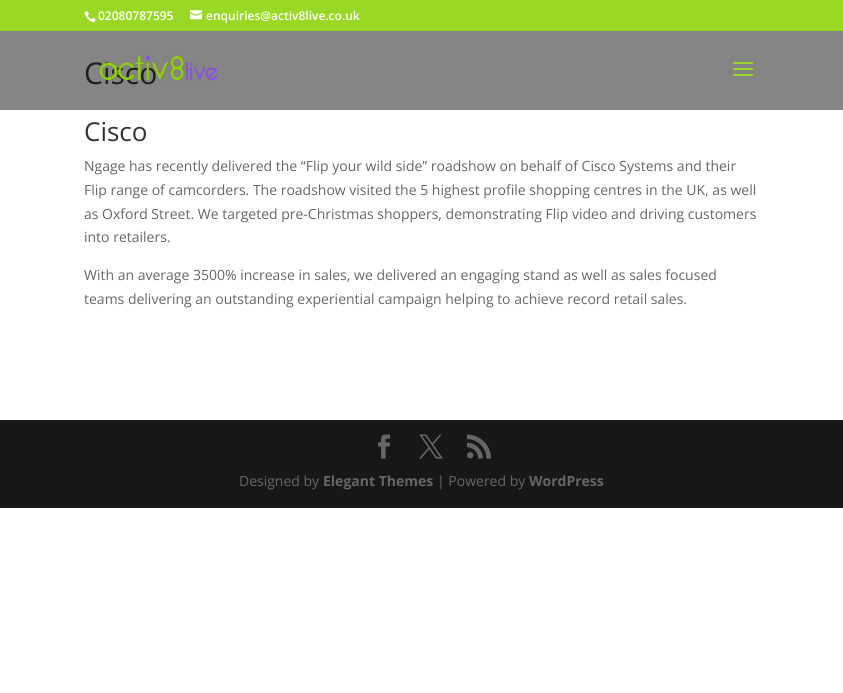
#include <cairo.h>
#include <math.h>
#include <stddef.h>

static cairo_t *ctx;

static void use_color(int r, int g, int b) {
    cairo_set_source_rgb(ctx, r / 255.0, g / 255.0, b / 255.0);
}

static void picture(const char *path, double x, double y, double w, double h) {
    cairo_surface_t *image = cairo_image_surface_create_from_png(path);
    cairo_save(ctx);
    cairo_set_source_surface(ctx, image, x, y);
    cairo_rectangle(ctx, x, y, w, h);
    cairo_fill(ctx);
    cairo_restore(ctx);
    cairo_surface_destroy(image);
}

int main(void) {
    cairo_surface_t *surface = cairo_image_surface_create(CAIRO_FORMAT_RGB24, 843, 693);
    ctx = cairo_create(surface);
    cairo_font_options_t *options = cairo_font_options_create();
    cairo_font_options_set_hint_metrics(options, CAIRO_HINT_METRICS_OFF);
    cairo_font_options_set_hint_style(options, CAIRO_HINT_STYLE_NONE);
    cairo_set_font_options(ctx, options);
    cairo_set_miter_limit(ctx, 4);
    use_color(255, 255, 255);
    cairo_paint(ctx);
    use_color(133, 133, 133);
    cairo_rectangle(ctx, 0, 31, 843, 79);
    cairo_fill(ctx);
    use_color(153, 216, 36);
    cairo_rectangle(ctx, 0, 0, 843, 31);
    cairo_fill(ctx);
    picture("img1.png", 84, 11, 12, 12);
    cairo_select_font_face(ctx, "Open Sans SemiBold", CAIRO_FONT_SLANT_NORMAL, CAIRO_FONT_WEIGHT_NORMAL);
    cairo_set_font_size(ctx, 12);
    use_color(255, 255, 255);
    cairo_move_to(ctx, 98, 20);
    cairo_show_text(ctx, "02080787595");
    picture("img2.png", 190, 10, 12, 10);
    cairo_move_to(ctx, 206, 20);
    cairo_show_text(ctx, "enquiries@activ8live.co.uk");
    cairo_select_font_face(ctx, "Open Sans", CAIRO_FONT_SLANT_NORMAL, CAIRO_FONT_WEIGHT_NORMAL);
    cairo_set_font_size(ctx, 30);
    use_color(31, 31, 31);
    cairo_move_to(ctx, 84, 84);
    cairo_show_text(ctx, "Cisco");
    picture("img3.png", 99, 55, 119, 26);
    picture("img4.png", 733, 62, 20, 14);
    cairo_set_font_size(ctx, 26);
    use_color(51, 51, 51);
    cairo_move_to(ctx, 84, 141);
    cairo_show_text(ctx, "Cisco");
    cairo_set_font_size(ctx, 14);
    use_color(102, 102, 102);
    cairo_move_to(ctx, 84, 171);
    cairo_show_text(ctx, "Ngage has recently delivered the “Flip your wild side” roadshow on behalf of Cisco Systems and their");
    cairo_move_to(ctx, 84, 195);
    cairo_show_text(ctx, "Flip range of camcorders. The roadshow visited the 5 highest profile shopping centres in the UK, as well");
    cairo_move_to(ctx, 84, 219);
    cairo_show_text(ctx, "as Oxford Street. We targeted pre-Christmas shoppers, demonstrating Flip video and driving customers");
    cairo_move_to(ctx, 84, 242);
    cairo_show_text(ctx, "into retailers.");
    cairo_move_to(ctx, 84, 280);
    cairo_show_text(ctx, "With an average 3500% increase in sales, we delivered an engaging stand as well as sales focused");
    cairo_move_to(ctx, 84, 304);
    cairo_show_text(ctx, "teams delivering an outstanding experiential campaign helping to achieve record retail sales.");
    use_color(23, 23, 23);
    cairo_rectangle(ctx, 0, 420, 843, 88);
    cairo_fill(ctx);
    picture("img5.png", 378, 434, 12, 25);
    picture("img6.png", 419, 434, 24, 25);
    picture("img7.png", 467, 434, 24, 25);
    use_color(102, 102, 102);
    cairo_move_to(ctx, 239, 486);
    cairo_show_text(ctx, "Designed by");
    cairo_select_font_face(ctx, "Open Sans", CAIRO_FONT_SLANT_NORMAL, CAIRO_FONT_WEIGHT_BOLD);
    cairo_move_to(ctx, 323, 486);
    cairo_show_text(ctx, "Elegant Themes");
    cairo_select_font_face(ctx, "Open Sans", CAIRO_FONT_SLANT_NORMAL, CAIRO_FONT_WEIGHT_NORMAL);
    cairo_move_to(ctx, 437, 486);
    cairo_show_text(ctx, "| Powered by");
    cairo_select_font_face(ctx, "Open Sans", CAIRO_FONT_SLANT_NORMAL, CAIRO_FONT_WEIGHT_BOLD);
    cairo_move_to(ctx, 529, 486);
    cairo_show_text(ctx, "WordPress");
    cairo_surface_write_to_png(surface, "result.png");
    cairo_font_options_destroy(options);
    cairo_destroy(ctx);
    cairo_surface_destroy(surface);
    return 0;
}
